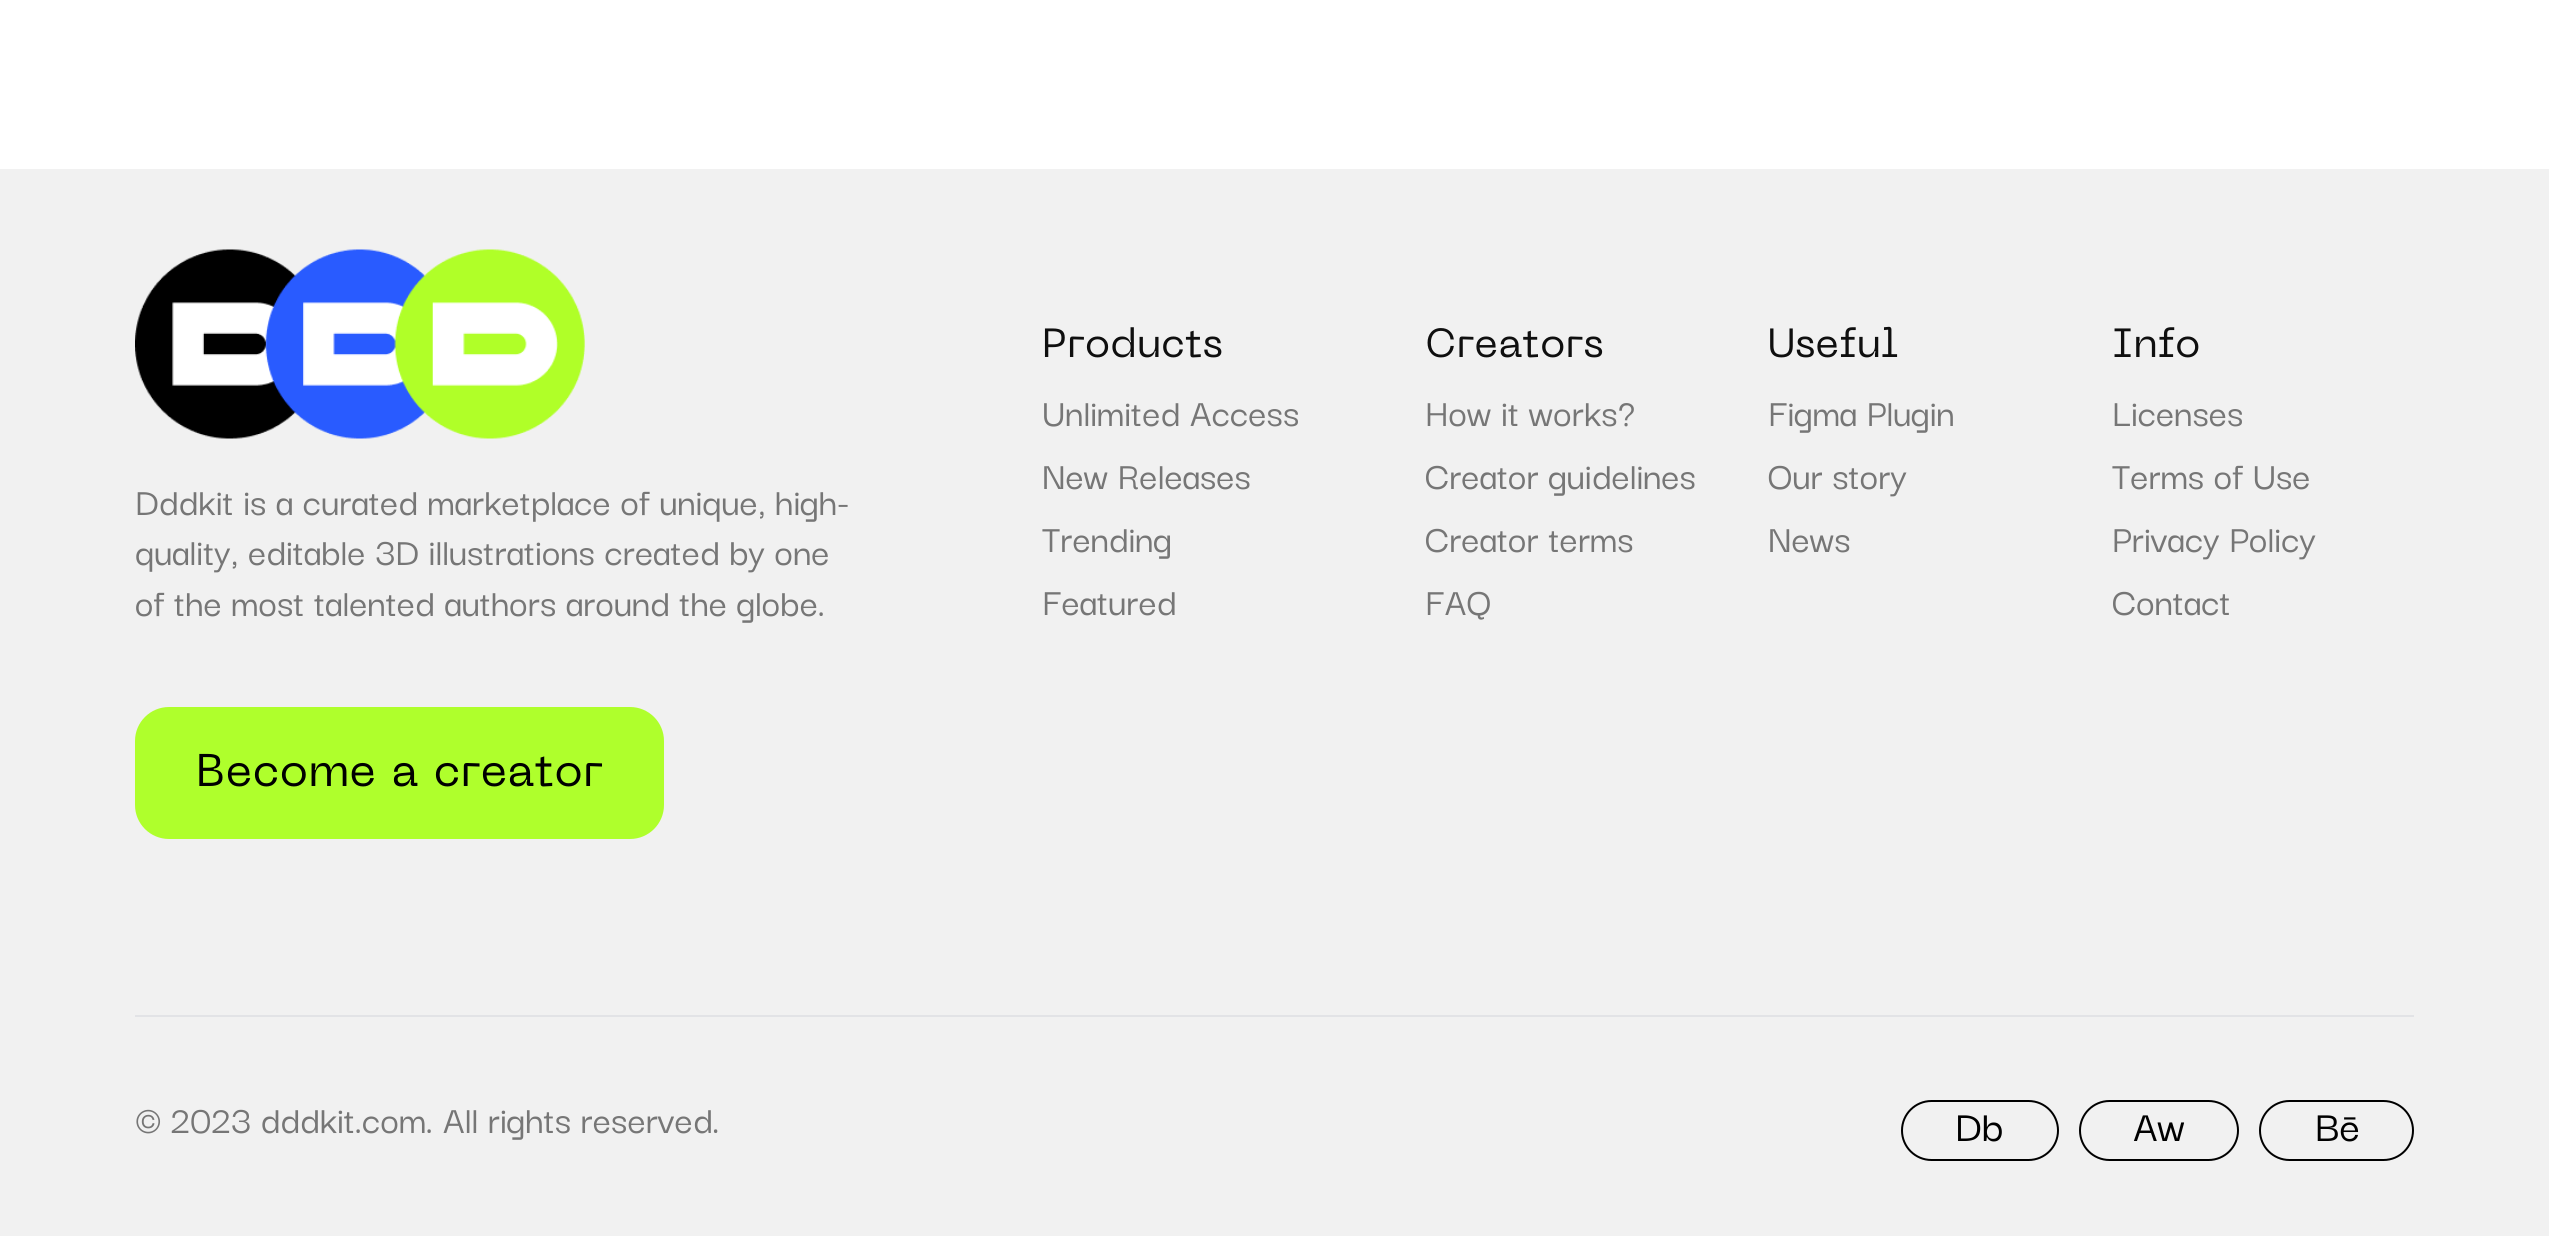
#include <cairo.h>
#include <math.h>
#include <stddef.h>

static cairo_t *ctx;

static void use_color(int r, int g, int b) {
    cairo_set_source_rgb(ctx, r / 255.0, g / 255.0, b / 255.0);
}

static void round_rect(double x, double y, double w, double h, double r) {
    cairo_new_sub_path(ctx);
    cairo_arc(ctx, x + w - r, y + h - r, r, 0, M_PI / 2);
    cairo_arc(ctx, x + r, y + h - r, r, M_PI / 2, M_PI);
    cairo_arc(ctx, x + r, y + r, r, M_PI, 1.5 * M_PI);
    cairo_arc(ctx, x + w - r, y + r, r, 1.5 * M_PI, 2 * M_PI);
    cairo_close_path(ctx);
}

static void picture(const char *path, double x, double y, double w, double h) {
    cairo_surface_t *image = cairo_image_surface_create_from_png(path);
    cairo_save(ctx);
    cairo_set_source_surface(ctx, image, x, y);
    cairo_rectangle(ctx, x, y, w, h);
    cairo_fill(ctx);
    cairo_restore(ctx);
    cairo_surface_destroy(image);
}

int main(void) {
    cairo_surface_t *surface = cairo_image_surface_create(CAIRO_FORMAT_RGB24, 2549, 1236);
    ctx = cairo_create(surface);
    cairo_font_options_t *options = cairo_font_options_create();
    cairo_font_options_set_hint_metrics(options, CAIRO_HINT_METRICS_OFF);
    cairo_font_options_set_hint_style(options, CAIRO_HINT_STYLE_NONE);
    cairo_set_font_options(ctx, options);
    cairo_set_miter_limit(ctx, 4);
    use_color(255, 255, 255);
    cairo_paint(ctx);
    use_color(241, 241, 241);
    cairo_rectangle(ctx, 0, 169, 2549, 1067);
    cairo_fill(ctx);
    picture("img1.png", 135, 249, 450, 190);
    cairo_select_font_face(ctx, "Darker Grotesque Medium", CAIRO_FONT_SLANT_NORMAL, CAIRO_FONT_WEIGHT_NORMAL);
    cairo_set_font_size(ctx, 40.5);
    use_color(118, 118, 118);
    cairo_move_to(ctx, 135, 515);
    cairo_show_text(ctx, "Dddkit is a curated marketplace of unique, high-");
    cairo_move_to(ctx, 135, 565);
    cairo_show_text(ctx, "quality, editable 3D illustrations created by one");
    cairo_move_to(ctx, 135, 616);
    cairo_show_text(ctx, "of the most talented authors around the globe.");
    use_color(175, 255, 44);
    round_rect(135, 707, 529, 132, 34);
    cairo_fill(ctx);
    cairo_select_font_face(ctx, "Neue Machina", CAIRO_FONT_SLANT_NORMAL, CAIRO_FONT_WEIGHT_NORMAL);
    cairo_set_font_size(ctx, 45.5);
    use_color(0, 0, 0);
    cairo_move_to(ctx, 196, 786);
    cairo_show_text(ctx, "Become a creator");
    cairo_set_font_size(ctx, 40.5);
    use_color(15, 15, 15);
    cairo_move_to(ctx, 1042, 357);
    cairo_show_text(ctx, "Products");
    cairo_select_font_face(ctx, "Darker Grotesque Medium", CAIRO_FONT_SLANT_NORMAL, CAIRO_FONT_WEIGHT_NORMAL);
    use_color(118, 118, 118);
    cairo_move_to(ctx, 1042, 426);
    cairo_show_text(ctx, "Unlimited Access");
    cairo_move_to(ctx, 1042, 489);
    cairo_show_text(ctx, "New Releases");
    cairo_move_to(ctx, 1042, 552);
    cairo_show_text(ctx, "Trending");
    cairo_move_to(ctx, 1042, 615);
    cairo_show_text(ctx, "Featured");
    cairo_select_font_face(ctx, "Neue Machina", CAIRO_FONT_SLANT_NORMAL, CAIRO_FONT_WEIGHT_NORMAL);
    use_color(15, 15, 15);
    cairo_move_to(ctx, 1425, 357);
    cairo_show_text(ctx, "Creators");
    cairo_select_font_face(ctx, "Darker Grotesque Medium", CAIRO_FONT_SLANT_NORMAL, CAIRO_FONT_WEIGHT_NORMAL);
    use_color(118, 118, 118);
    cairo_move_to(ctx, 1425, 426);
    cairo_show_text(ctx, "How it works?");
    cairo_move_to(ctx, 1425, 489);
    cairo_show_text(ctx, "Creator guidelines");
    cairo_move_to(ctx, 1425, 552);
    cairo_show_text(ctx, "Creator terms");
    cairo_move_to(ctx, 1425, 615);
    cairo_show_text(ctx, "FAQ");
    cairo_select_font_face(ctx, "Neue Machina", CAIRO_FONT_SLANT_NORMAL, CAIRO_FONT_WEIGHT_NORMAL);
    use_color(15, 15, 15);
    cairo_move_to(ctx, 1768, 357);
    cairo_show_text(ctx, "Useful");
    cairo_select_font_face(ctx, "Darker Grotesque Medium", CAIRO_FONT_SLANT_NORMAL, CAIRO_FONT_WEIGHT_NORMAL);
    use_color(118, 118, 118);
    cairo_move_to(ctx, 1768, 426);
    cairo_show_text(ctx, "Figma Plugin");
    cairo_move_to(ctx, 1768, 489);
    cairo_show_text(ctx, "Our story");
    cairo_move_to(ctx, 1768, 552);
    cairo_show_text(ctx, "News");
    cairo_select_font_face(ctx, "Neue Machina", CAIRO_FONT_SLANT_NORMAL, CAIRO_FONT_WEIGHT_NORMAL);
    use_color(15, 15, 15);
    cairo_move_to(ctx, 2112, 357);
    cairo_show_text(ctx, "Info");
    cairo_select_font_face(ctx, "Darker Grotesque Medium", CAIRO_FONT_SLANT_NORMAL, CAIRO_FONT_WEIGHT_NORMAL);
    use_color(118, 118, 118);
    cairo_move_to(ctx, 2112, 426);
    cairo_show_text(ctx, "Licenses");
    cairo_move_to(ctx, 2112, 489);
    cairo_show_text(ctx, "Terms of Use");
    cairo_move_to(ctx, 2112, 552);
    cairo_show_text(ctx, "Privacy Policy");
    cairo_move_to(ctx, 2112, 615);
    cairo_show_text(ctx, "Contact");
    use_color(226, 227, 230);
    cairo_rectangle(ctx, 135, 1015, 2279, 2);
    cairo_fill(ctx);
    use_color(118, 118, 118);
    cairo_move_to(ctx, 135, 1133);
    cairo_show_text(ctx, "© 2023 dddkit.com. All rights reserved.");
    round_rect(1902, 1101, 156, 59, 29.5);
    use_color(0, 0, 0);
    cairo_stroke(ctx);
    cairo_set_font_size(ctx, 45.5);
    cairo_move_to(ctx, 1955, 1141);
    cairo_show_text(ctx, "Db");
    round_rect(2080, 1101, 158, 59, 29.5);
    cairo_stroke(ctx);
    cairo_move_to(ctx, 2133, 1141);
    cairo_show_text(ctx, "Aw");
    round_rect(2260, 1101, 153, 59, 29.5);
    cairo_stroke(ctx);
    cairo_move_to(ctx, 2315, 1141);
    cairo_show_text(ctx, "Bē");
    cairo_surface_write_to_png(surface, "result.png");
    cairo_font_options_destroy(options);
    cairo_destroy(ctx);
    cairo_surface_destroy(surface);
    return 0;
}
